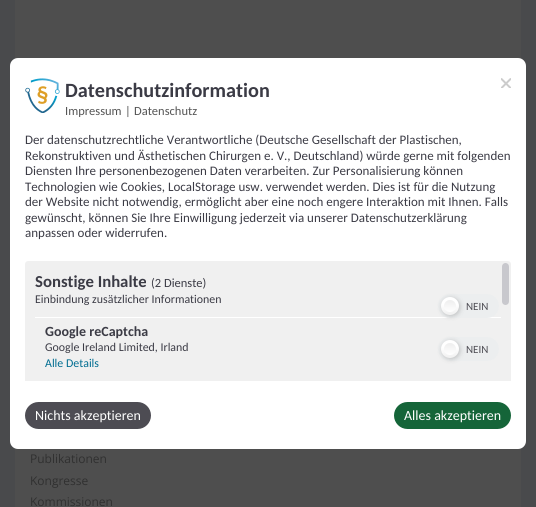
#include <cairo.h>
#include <math.h>
#include <stddef.h>

static cairo_t *ctx;

static void use_color(int r, int g, int b) {
    cairo_set_source_rgb(ctx, r / 255.0, g / 255.0, b / 255.0);
}

static void round_rect(double x, double y, double w, double h, double r) {
    cairo_new_sub_path(ctx);
    cairo_arc(ctx, x + w - r, y + h - r, r, 0, M_PI / 2);
    cairo_arc(ctx, x + r, y + h - r, r, M_PI / 2, M_PI);
    cairo_arc(ctx, x + r, y + r, r, M_PI, 1.5 * M_PI);
    cairo_arc(ctx, x + w - r, y + r, r, 1.5 * M_PI, 2 * M_PI);
    cairo_close_path(ctx);
}

static void shadow(double x, double y, double w, double h, double r, double blur, double alpha) {
    cairo_push_group_with_content(ctx, CAIRO_CONTENT_ALPHA);
    cairo_set_operator(ctx, CAIRO_OPERATOR_SOURCE);
    for (int i = 15; i >= -15 && fmin(w, h) + blur * i / 3 > 0; i -= 2) {
        double e = blur * i / 6;
        cairo_set_source_rgba(ctx, 0, 0, 0, alpha * erfc((i - 1) / 8.5) / 2);
        round_rect(x - e, y - e, w + 2 * e, h + 2 * e, fmax(0, fmin(r + e + blur * .6, fmin(w, h) / 2 + e)));
        cairo_fill(ctx);
    }
    cairo_pattern_t *soft = cairo_pop_group(ctx);
    cairo_mask(ctx, soft);
    cairo_pattern_destroy(soft);
}

static void picture(const char *path, double x, double y, double w, double h) {
    cairo_surface_t *image = cairo_image_surface_create_from_png(path);
    cairo_save(ctx);
    cairo_set_source_surface(ctx, image, x, y);
    cairo_rectangle(ctx, x, y, w, h);
    cairo_fill(ctx);
    cairo_restore(ctx);
    cairo_surface_destroy(image);
}

int main(void) {
    cairo_surface_t *surface = cairo_image_surface_create(CAIRO_FORMAT_RGB24, 536, 507);
    ctx = cairo_create(surface);
    cairo_font_options_t *options = cairo_font_options_create();
    cairo_font_options_set_hint_metrics(options, CAIRO_HINT_METRICS_OFF);
    cairo_font_options_set_hint_style(options, CAIRO_HINT_STYLE_NONE);
    cairo_set_font_options(ctx, options);
    cairo_set_miter_limit(ctx, 4);
    cairo_pattern_t *gradient;
    use_color(73, 74, 76);
    cairo_paint(ctx);
    use_color(78, 78, 78);
    cairo_rectangle(ctx, 15, 0, 506, 59);
    cairo_fill(ctx);
    cairo_rectangle(ctx, 15, 448, 506, 59);
    cairo_fill(ctx);
    use_color(255, 255, 255);
    round_rect(10, 58, 516, 391, 8);
    cairo_fill(ctx);
    picture("img1.png", 25, 78, 35, 35);
    cairo_select_font_face(ctx, "Carlito", CAIRO_FONT_SLANT_NORMAL, CAIRO_FONT_WEIGHT_BOLD);
    cairo_set_font_size(ctx, 20.25);
    use_color(59, 59, 69);
    cairo_move_to(ctx, 65, 97);
    cairo_show_text(ctx, "Datenschutzinformation");
    cairo_save(ctx);
    cairo_rectangle(ctx, 501, 78, 10, 10);
    cairo_clip(ctx);
    cairo_new_path(ctx);
    cairo_move_to(ctx, 501, 78.5);
    cairo_line_to(ctx, 511, 88.5);
    cairo_move_to(ctx, 501, 88.5);
    cairo_line_to(ctx, 511, 78.5);
    use_color(204, 204, 204);
    cairo_stroke(ctx);
    cairo_restore(ctx);
    cairo_select_font_face(ctx, "Carlito", CAIRO_FONT_SLANT_NORMAL, CAIRO_FONT_WEIGHT_NORMAL);
    cairo_set_font_size(ctx, 12.5);
    use_color(85, 85, 85);
    cairo_move_to(ctx, 65, 115);
    cairo_show_text(ctx, "Impressum");
    cairo_move_to(ctx, 125, 115);
    cairo_show_text(ctx, "|");
    cairo_move_to(ctx, 134, 115);
    cairo_show_text(ctx, "Datenschutz");
    cairo_set_font_size(ctx, 13);
    use_color(59, 59, 69);
    cairo_move_to(ctx, 25, 144);
    cairo_show_text(ctx, "Der datenschutzrechtliche Verantwortliche (Deutsche Gesellschaft der Plastischen,");
    cairo_move_to(ctx, 25, 160);
    cairo_show_text(ctx, "Rekonstruktiven und Ästhetischen Chirurgen e. V., Deutschland) würde gerne mit folgenden");
    cairo_move_to(ctx, 25, 175);
    cairo_show_text(ctx, "Diensten Ihre personenbezogenen Daten verarbeiten. Zur Personalisierung können");
    cairo_move_to(ctx, 25, 191);
    cairo_show_text(ctx, "Technologien wie Cookies, LocalStorage usw. verwendet werden. Dies ist für die Nutzung");
    cairo_move_to(ctx, 25, 206);
    cairo_show_text(ctx, "der Website nicht notwendig, ermöglicht aber eine noch engere Interaktion mit Ihnen. Falls");
    cairo_move_to(ctx, 25, 222);
    cairo_show_text(ctx, "gewünscht, können Sie Ihre Einwilligung jederzeit via unserer Datenschutzerklärung");
    cairo_move_to(ctx, 25, 237);
    cairo_show_text(ctx, "anpassen oder widerrufen.");
    use_color(240, 240, 240);
    cairo_new_path(ctx);
    cairo_move_to(ctx, 28, 261);
    cairo_line_to(ctx, 508, 261);
    cairo_curve_to(ctx, 509.5, 261, 511, 262.5, 511, 264);
    cairo_line_to(ctx, 511, 381);
    cairo_line_to(ctx, 25, 381);
    cairo_line_to(ctx, 25, 264);
    cairo_curve_to(ctx, 25, 262.5, 26.5, 261, 28, 261);
    cairo_close_path(ctx);
    cairo_fill(ctx);
    cairo_select_font_face(ctx, "Carlito", CAIRO_FONT_SLANT_NORMAL, CAIRO_FONT_WEIGHT_BOLD);
    cairo_set_font_size(ctx, 16.75);
    use_color(59, 59, 69);
    cairo_move_to(ctx, 35, 287);
    cairo_show_text(ctx, "Sonstige Inhalte");
    cairo_select_font_face(ctx, "Carlito", CAIRO_FONT_SLANT_NORMAL, CAIRO_FONT_WEIGHT_NORMAL);
    cairo_set_font_size(ctx, 12.5);
    cairo_move_to(ctx, 151, 287);
    cairo_show_text(ctx, "(2 Dienste)");
    cairo_set_font_size(ctx, 11.9);
    cairo_move_to(ctx, 35, 303);
    cairo_show_text(ctx, "Einbindung zusätzlicher Informationen");
    use_color(255, 255, 255);
    cairo_rectangle(ctx, 35, 317, 466, 1);
    cairo_fill(ctx);
    use_color(236, 238, 239);
    round_rect(438, 294, 61, 24, 12);
    cairo_fill(ctx);
    use_color(0, 0, 0);
    shadow(442, 298, 18, 18, 9, 2.5, 0.2);
    gradient = cairo_pattern_create_linear(450, 297, 450, 315);
    cairo_pattern_add_color_stop_rgba(gradient, 0.4, 1, 1, 1, 1);
    cairo_pattern_add_color_stop_rgba(gradient, 1, 0.941, 0.941, 0.941, 1);
    cairo_set_source(ctx, gradient);
    cairo_pattern_destroy(gradient);
    cairo_arc(ctx, 450, 306, 9, 0, 2 * M_PI);
    cairo_fill(ctx);
    gradient = cairo_pattern_create_linear(450, 300, 450, 312);
    cairo_pattern_add_color_stop_rgba(gradient, 0, 0.933, 0.933, 0.933, 1);
    cairo_pattern_add_color_stop_rgba(gradient, 1, 1, 1, 1, 1);
    cairo_set_source(ctx, gradient);
    cairo_pattern_destroy(gradient);
    cairo_arc(ctx, 450, 306, 6, 0, 2 * M_PI);
    cairo_fill(ctx);
    cairo_set_font_size(ctx, 11);
    use_color(77, 76, 83);
    cairo_move_to(ctx, 466, 310);
    cairo_show_text(ctx, "NEIN");
    cairo_select_font_face(ctx, "Carlito", CAIRO_FONT_SLANT_NORMAL, CAIRO_FONT_WEIGHT_BOLD);
    cairo_set_font_size(ctx, 14);
    use_color(59, 59, 69);
    cairo_move_to(ctx, 45, 336);
    cairo_show_text(ctx, "Google reCaptcha");
    cairo_select_font_face(ctx, "Carlito", CAIRO_FONT_SLANT_NORMAL, CAIRO_FONT_WEIGHT_NORMAL);
    cairo_set_font_size(ctx, 11.9);
    cairo_move_to(ctx, 45, 351);
    cairo_show_text(ctx, "Google Ireland Limited, Irland");
    use_color(0, 109, 145);
    cairo_move_to(ctx, 45, 367);
    cairo_show_text(ctx, "Alle Details");
    use_color(236, 238, 239);
    round_rect(438, 337, 61, 24, 12);
    cairo_fill(ctx);
    use_color(0, 0, 0);
    shadow(442, 341, 18, 18, 9, 2.5, 0.2);
    gradient = cairo_pattern_create_linear(450, 340, 450, 358);
    cairo_pattern_add_color_stop_rgba(gradient, 0.4, 1, 1, 1, 1);
    cairo_pattern_add_color_stop_rgba(gradient, 1, 0.941, 0.941, 0.941, 1);
    cairo_set_source(ctx, gradient);
    cairo_pattern_destroy(gradient);
    cairo_arc(ctx, 450, 349, 9, 0, 2 * M_PI);
    cairo_fill(ctx);
    gradient = cairo_pattern_create_linear(450, 343, 450, 355);
    cairo_pattern_add_color_stop_rgba(gradient, 0, 0.933, 0.933, 0.933, 1);
    cairo_pattern_add_color_stop_rgba(gradient, 1, 1, 1, 1, 1);
    cairo_set_source(ctx, gradient);
    cairo_pattern_destroy(gradient);
    cairo_arc(ctx, 450, 349, 6, 0, 2 * M_PI);
    cairo_fill(ctx);
    cairo_set_font_size(ctx, 11);
    use_color(77, 76, 83);
    cairo_move_to(ctx, 466, 353);
    cairo_show_text(ctx, "NEIN");
    use_color(200, 200, 205);
    round_rect(502, 263, 7, 42, 3.5);
    cairo_fill(ctx);
    use_color(77, 76, 83);
    round_rect(25, 402, 126, 27, 13.5);
    cairo_fill(ctx);
    cairo_set_font_size(ctx, 14);
    use_color(255, 255, 255);
    cairo_move_to(ctx, 35, 420);
    cairo_show_text(ctx, "Nichts akzeptieren");
    use_color(21, 101, 57);
    round_rect(394, 402, 117, 27, 13.5);
    cairo_fill(ctx);
    use_color(255, 255, 255);
    cairo_move_to(ctx, 404, 420);
    cairo_show_text(ctx, "Alles akzeptieren");
    cairo_select_font_face(ctx, "Open Sans", CAIRO_FONT_SLANT_NORMAL, CAIRO_FONT_WEIGHT_NORMAL);
    cairo_set_font_size(ctx, 12);
    use_color(48, 48, 48);
    cairo_move_to(ctx, 30, 463);
    cairo_show_text(ctx, "Publikationen");
    cairo_move_to(ctx, 30, 485);
    cairo_show_text(ctx, "Kongresse");
    cairo_move_to(ctx, 30, 506);
    cairo_show_text(ctx, "Kommissionen");
    cairo_surface_write_to_png(surface, "result.png");
    cairo_font_options_destroy(options);
    cairo_destroy(ctx);
    cairo_surface_destroy(surface);
    return 0;
}
